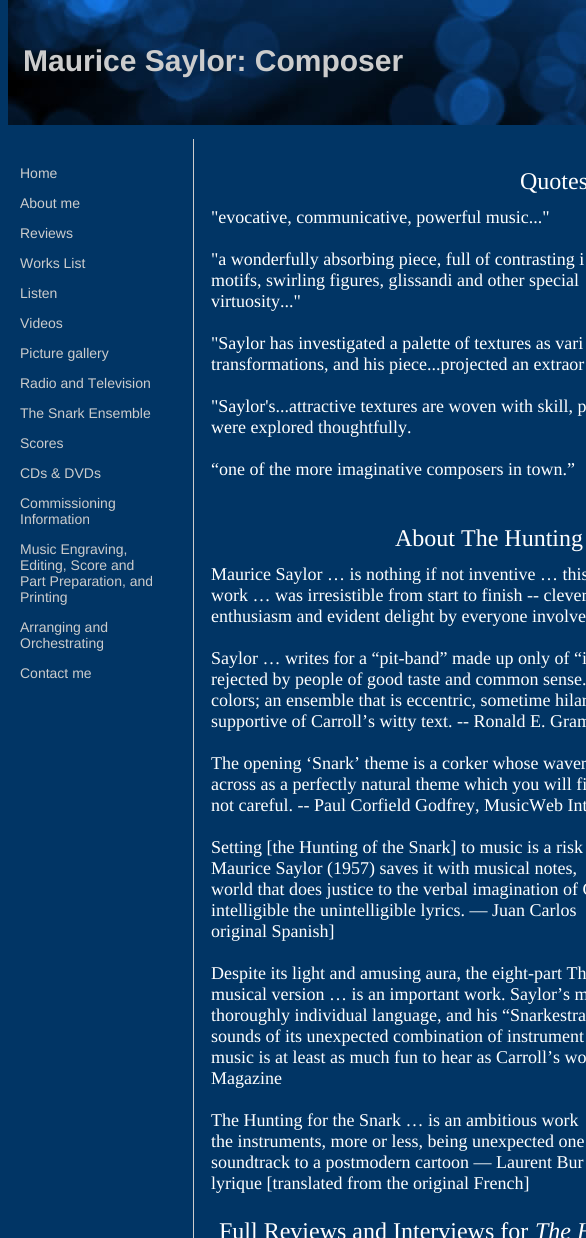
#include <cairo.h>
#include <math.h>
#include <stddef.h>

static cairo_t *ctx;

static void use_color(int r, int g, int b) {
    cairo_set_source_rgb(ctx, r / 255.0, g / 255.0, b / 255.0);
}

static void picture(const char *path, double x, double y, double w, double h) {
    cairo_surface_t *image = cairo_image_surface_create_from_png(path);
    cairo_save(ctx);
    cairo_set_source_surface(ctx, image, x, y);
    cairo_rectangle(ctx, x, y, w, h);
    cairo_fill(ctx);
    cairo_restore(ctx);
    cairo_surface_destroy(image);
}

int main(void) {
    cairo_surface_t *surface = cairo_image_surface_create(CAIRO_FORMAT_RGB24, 586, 1238);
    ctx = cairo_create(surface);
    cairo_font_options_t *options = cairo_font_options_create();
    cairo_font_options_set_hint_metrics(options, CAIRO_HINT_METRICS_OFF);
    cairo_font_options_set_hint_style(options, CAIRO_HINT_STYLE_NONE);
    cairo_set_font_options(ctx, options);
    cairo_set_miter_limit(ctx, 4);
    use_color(1, 53, 101);
    cairo_paint(ctx);
    picture("img1.png", 8, 0, 578, 125);
    cairo_select_font_face(ctx, "Liberation Sans", CAIRO_FONT_SLANT_NORMAL, CAIRO_FONT_WEIGHT_BOLD);
    cairo_set_font_size(ctx, 30);
    use_color(204, 204, 204);
    cairo_move_to(ctx, 23, 71);
    cairo_show_text(ctx, "Maurice Saylor: Composer");
    cairo_select_font_face(ctx, "Liberation Sans", CAIRO_FONT_SLANT_NORMAL, CAIRO_FONT_WEIGHT_NORMAL);
    cairo_set_font_size(ctx, 14);
    cairo_move_to(ctx, 20, 178);
    cairo_show_text(ctx, "Home");
    cairo_move_to(ctx, 20, 208);
    cairo_show_text(ctx, "About me");
    cairo_move_to(ctx, 20, 238);
    cairo_show_text(ctx, "Reviews");
    cairo_move_to(ctx, 20, 268);
    cairo_show_text(ctx, "Works List");
    cairo_move_to(ctx, 20, 298);
    cairo_show_text(ctx, "Listen");
    cairo_move_to(ctx, 20, 328);
    cairo_show_text(ctx, "Videos");
    cairo_move_to(ctx, 20, 358);
    cairo_show_text(ctx, "Picture gallery");
    cairo_move_to(ctx, 20, 388);
    cairo_show_text(ctx, "Radio and Television");
    cairo_move_to(ctx, 20, 418);
    cairo_show_text(ctx, "The Snark Ensemble");
    cairo_move_to(ctx, 20, 448);
    cairo_show_text(ctx, "Scores");
    cairo_move_to(ctx, 20, 478);
    cairo_show_text(ctx, "CDs & DVDs");
    cairo_move_to(ctx, 20, 508);
    cairo_show_text(ctx, "Commissioning");
    cairo_move_to(ctx, 20, 524);
    cairo_show_text(ctx, "Information");
    cairo_move_to(ctx, 20, 554);
    cairo_show_text(ctx, "Music Engraving,");
    cairo_move_to(ctx, 20, 570);
    cairo_show_text(ctx, "Editing, Score and");
    cairo_move_to(ctx, 20, 586);
    cairo_show_text(ctx, "Part Preparation, and");
    cairo_move_to(ctx, 20, 602);
    cairo_show_text(ctx, "Printing");
    cairo_move_to(ctx, 20, 632);
    cairo_show_text(ctx, "Arranging and");
    cairo_move_to(ctx, 20, 648);
    cairo_show_text(ctx, "Orchestrating");
    cairo_move_to(ctx, 20, 678);
    cairo_show_text(ctx, "Contact me");
    cairo_rectangle(ctx, 193, 139, 1, 1099);
    cairo_fill(ctx);
    cairo_select_font_face(ctx, "Liberation Serif", CAIRO_FONT_SLANT_NORMAL, CAIRO_FONT_WEIGHT_NORMAL);
    cairo_set_font_size(ctx, 24);
    use_color(255, 255, 255);
    cairo_move_to(ctx, 520, 189);
    cairo_show_text(ctx, "Quotes");
    cairo_set_font_size(ctx, 18);
    cairo_move_to(ctx, 211, 223);
    cairo_show_text(ctx, "\"evocative, communicative, powerful music...\"");
    cairo_move_to(ctx, 211, 265);
    cairo_show_text(ctx, "\"a wonderfully absorbing piece, full of contrasting i");
    cairo_move_to(ctx, 211, 286);
    cairo_show_text(ctx, "motifs, swirling figures, glissandi and other special");
    cairo_move_to(ctx, 211, 307);
    cairo_show_text(ctx, "virtuosity...\"");
    cairo_move_to(ctx, 211, 349);
    cairo_show_text(ctx, "\"Saylor has investigated a palette of textures as vari");
    cairo_move_to(ctx, 211, 370);
    cairo_show_text(ctx, "transformations, and his piece...projected an extraor");
    cairo_move_to(ctx, 211, 412);
    cairo_show_text(ctx, "\"Saylor's...attractive textures are woven with skill, p");
    cairo_move_to(ctx, 211, 433);
    cairo_show_text(ctx, "were explored thoughtfully.");
    cairo_move_to(ctx, 211, 475);
    cairo_show_text(ctx, "“one of the more imaginative composers in town.”");
    cairo_set_font_size(ctx, 24);
    cairo_move_to(ctx, 395, 546);
    cairo_show_text(ctx, "About The Hunting");
    cairo_set_font_size(ctx, 18);
    cairo_move_to(ctx, 211, 580);
    cairo_show_text(ctx, "Maurice Saylor … is nothing if not inventive … this");
    cairo_move_to(ctx, 211, 601);
    cairo_show_text(ctx, "work … was irresistible from start to finish -- clever");
    cairo_move_to(ctx, 211, 622);
    cairo_show_text(ctx, "enthusiasm and evident delight by everyone involve");
    cairo_move_to(ctx, 211, 664);
    cairo_show_text(ctx, "Saylor … writes for a “pit-band” made up only of “i");
    cairo_move_to(ctx, 211, 685);
    cairo_show_text(ctx, "rejected by people of good taste and common sense.");
    cairo_move_to(ctx, 211, 706);
    cairo_show_text(ctx, "colors; an ensemble that is eccentric, sometime hilar");
    cairo_move_to(ctx, 211, 727);
    cairo_show_text(ctx, "supportive of Carroll’s witty text. -- Ronald E. Gram");
    cairo_move_to(ctx, 211, 769);
    cairo_show_text(ctx, "The opening ‘Snark’ theme is a corker whose waver");
    cairo_move_to(ctx, 211, 790);
    cairo_show_text(ctx, "across as a perfectly natural theme which you will fi");
    cairo_move_to(ctx, 211, 811);
    cairo_show_text(ctx, "not careful. -- Paul Corfield Godfrey, MusicWeb Int");
    cairo_move_to(ctx, 211, 853);
    cairo_show_text(ctx, "Setting [the Hunting of the Snark] to music is a risk");
    cairo_move_to(ctx, 211, 874);
    cairo_show_text(ctx, "Maurice Saylor (1957) saves it with musical notes,");
    cairo_move_to(ctx, 211, 895);
    cairo_show_text(ctx, "world that does justice to the verbal imagination of C");
    cairo_move_to(ctx, 211, 916);
    cairo_show_text(ctx, "intelligible the unintelligible lyrics. — Juan Carlos");
    cairo_move_to(ctx, 211, 937);
    cairo_show_text(ctx, "original Spanish]");
    cairo_move_to(ctx, 211, 979);
    cairo_show_text(ctx, "Despite its light and amusing aura, the eight-part Th");
    cairo_move_to(ctx, 211, 1000);
    cairo_show_text(ctx, "musical version … is an important work. Saylor’s m");
    cairo_move_to(ctx, 211, 1021);
    cairo_show_text(ctx, "thoroughly individual language, and his “Snarkestra");
    cairo_move_to(ctx, 211, 1042);
    cairo_show_text(ctx, "sounds of its unexpected combination of instrument");
    cairo_move_to(ctx, 211, 1063);
    cairo_show_text(ctx, "music is at least as much fun to hear as Carroll’s wo");
    cairo_move_to(ctx, 211, 1084);
    cairo_show_text(ctx, "Magazine");
    cairo_move_to(ctx, 211, 1126);
    cairo_show_text(ctx, "The Hunting for the Snark … is an ambitious work");
    cairo_move_to(ctx, 211, 1147);
    cairo_show_text(ctx, "the instruments, more or less, being unexpected one");
    cairo_move_to(ctx, 211, 1168);
    cairo_show_text(ctx, "soundtrack to a postmodern cartoon — Laurent Bur");
    cairo_move_to(ctx, 211, 1189);
    cairo_show_text(ctx, "lyrique [translated from the original French]");
    cairo_set_font_size(ctx, 24);
    cairo_move_to(ctx, 219, 1239);
    cairo_show_text(ctx, "Full Reviews and Interviews for");
    cairo_select_font_face(ctx, "Liberation Serif", CAIRO_FONT_SLANT_ITALIC, CAIRO_FONT_WEIGHT_NORMAL);
    cairo_move_to(ctx, 535, 1239);
    cairo_show_text(ctx, "The H");
    cairo_surface_write_to_png(surface, "result.png");
    cairo_font_options_destroy(options);
    cairo_destroy(ctx);
    cairo_surface_destroy(surface);
    return 0;
}
